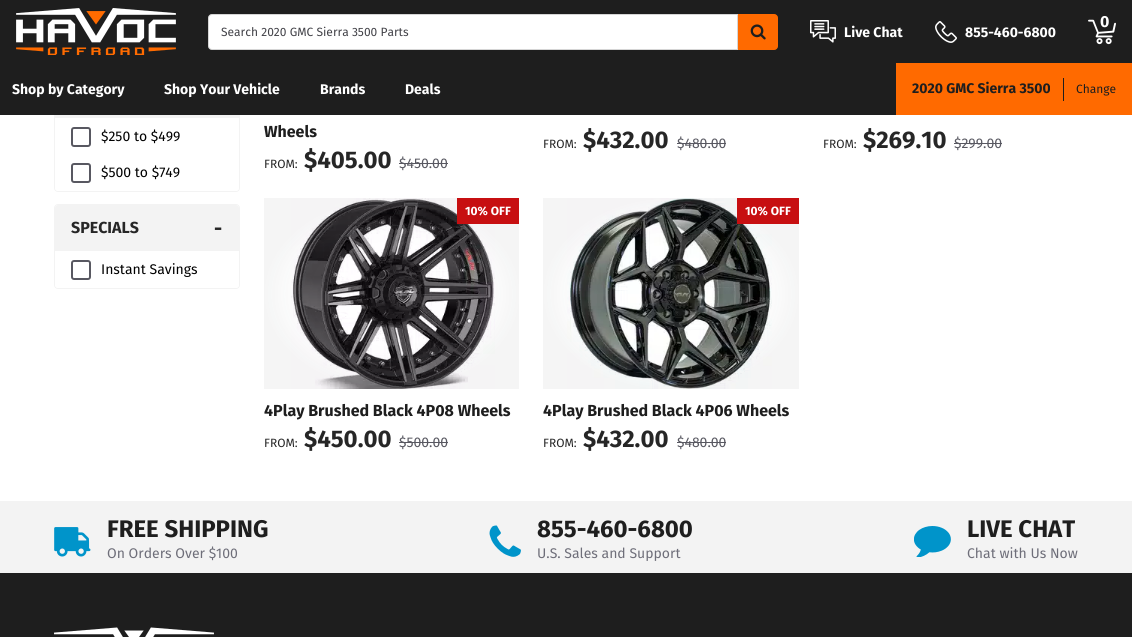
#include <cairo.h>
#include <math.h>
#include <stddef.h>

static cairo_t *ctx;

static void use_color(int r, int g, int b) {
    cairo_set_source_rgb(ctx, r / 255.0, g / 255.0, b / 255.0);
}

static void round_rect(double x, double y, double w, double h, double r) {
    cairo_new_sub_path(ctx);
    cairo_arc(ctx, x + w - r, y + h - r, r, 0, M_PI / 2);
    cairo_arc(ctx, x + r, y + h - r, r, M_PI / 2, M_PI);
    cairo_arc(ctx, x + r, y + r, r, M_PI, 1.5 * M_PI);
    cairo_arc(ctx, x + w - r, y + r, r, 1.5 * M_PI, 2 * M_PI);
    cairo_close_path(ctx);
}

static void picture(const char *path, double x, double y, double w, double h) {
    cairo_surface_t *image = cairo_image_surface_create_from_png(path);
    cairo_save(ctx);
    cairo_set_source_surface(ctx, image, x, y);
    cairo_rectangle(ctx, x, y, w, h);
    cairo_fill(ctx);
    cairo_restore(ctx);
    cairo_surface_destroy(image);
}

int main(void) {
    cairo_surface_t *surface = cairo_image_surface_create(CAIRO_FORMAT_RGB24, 1132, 637);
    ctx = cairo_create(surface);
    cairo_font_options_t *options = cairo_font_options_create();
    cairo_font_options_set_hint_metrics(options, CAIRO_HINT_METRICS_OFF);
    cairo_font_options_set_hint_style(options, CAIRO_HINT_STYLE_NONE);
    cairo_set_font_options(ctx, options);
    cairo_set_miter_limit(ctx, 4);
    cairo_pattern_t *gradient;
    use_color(255, 255, 255);
    cairo_paint(ctx);
    use_color(30, 30, 30);
    cairo_rectangle(ctx, 0, 0, 1132, 63);
    cairo_fill(ctx);
    picture("img1.png", 16, 8, 160, 47);
    use_color(255, 255, 255);
    cairo_new_path(ctx);
    cairo_move_to(ctx, 212, 14.5);
    cairo_line_to(ctx, 737.5, 14.5);
    cairo_line_to(ctx, 737.5, 49.5);
    cairo_line_to(ctx, 212, 49.5);
    cairo_curve_to(ctx, 210, 49.5, 208.5, 48, 208.5, 46);
    cairo_line_to(ctx, 208.5, 18);
    cairo_curve_to(ctx, 208.5, 16, 210, 14.5, 212, 14.5);
    cairo_close_path(ctx);
    cairo_fill_preserve(ctx);
    use_color(213, 213, 213);
    cairo_set_line_width(ctx, 1);
    cairo_stroke(ctx);
    cairo_select_font_face(ctx, "Fira Sans", CAIRO_FONT_SLANT_NORMAL, CAIRO_FONT_WEIGHT_NORMAL);
    cairo_set_font_size(ctx, 12);
    use_color(66, 66, 72);
    cairo_move_to(ctx, 221, 36);
    cairo_show_text(ctx, "Search 2020 GMC Sierra 3500 Parts");
    use_color(255, 106, 0);
    cairo_new_path(ctx);
    cairo_move_to(ctx, 738.5, 14.5);
    cairo_line_to(ctx, 774, 14.5);
    cairo_curve_to(ctx, 776, 14.5, 777.5, 16, 777.5, 18);
    cairo_line_to(ctx, 777.5, 46);
    cairo_curve_to(ctx, 777.5, 48, 776, 49.5, 774, 49.5);
    cairo_line_to(ctx, 738.5, 49.5);
    cairo_close_path(ctx);
    cairo_fill_preserve(ctx);
    cairo_stroke(ctx);
    picture("img2.png", 750, 24, 16, 16);
    picture("img3.png", 1088, 19, 28, 26);
    cairo_select_font_face(ctx, "Fira Sans", CAIRO_FONT_SLANT_NORMAL, CAIRO_FONT_WEIGHT_BOLD);
    cairo_set_font_size(ctx, 16);
    use_color(255, 255, 255);
    cairo_move_to(ctx, 1100, 27);
    cairo_show_text(ctx, "0");
    picture("img4.png", 810, 20, 26, 23);
    cairo_set_font_size(ctx, 14);
    cairo_move_to(ctx, 844, 37);
    cairo_show_text(ctx, "Live Chat");
    picture("img5.png", 935, 21, 22, 22);
    cairo_move_to(ctx, 965, 37);
    cairo_show_text(ctx, "855-460-6800");
    round_rect(54.5, 71.5, 185, 120, 3.5);
    use_color(243, 243, 243);
    cairo_stroke(ctx);
    use_color(30, 30, 30);
    cairo_rectangle(ctx, 0, 63, 896, 52);
    cairo_fill(ctx);
    use_color(255, 255, 255);
    cairo_move_to(ctx, 12, 94);
    cairo_show_text(ctx, "Shop by Category");
    cairo_move_to(ctx, 164, 94);
    cairo_show_text(ctx, "Shop Your Vehicle");
    cairo_move_to(ctx, 320, 94);
    cairo_show_text(ctx, "Brands");
    cairo_move_to(ctx, 405, 94);
    cairo_show_text(ctx, "Deals");
    use_color(255, 106, 0);
    cairo_rectangle(ctx, 896, 63, 236, 52);
    cairo_fill(ctx);
    use_color(30, 30, 30);
    cairo_move_to(ctx, 912, 93);
    cairo_show_text(ctx, "2020 GMC Sierra 3500");
    cairo_rectangle(ctx, 1063, 78, 1, 23);
    cairo_fill(ctx);
    cairo_select_font_face(ctx, "Fira Sans", CAIRO_FONT_SLANT_NORMAL, CAIRO_FONT_WEIGHT_NORMAL);
    cairo_set_font_size(ctx, 12);
    cairo_move_to(ctx, 1076, 93);
    cairo_show_text(ctx, "Change");
    use_color(243, 243, 243);
    cairo_rectangle(ctx, 55, 115, 184, 3);
    cairo_fill(ctx);
    use_color(255, 255, 255);
    cairo_new_path(ctx);
    cairo_move_to(ctx, 55, 118);
    cairo_line_to(ctx, 239, 118);
    cairo_line_to(ctx, 239, 188);
    cairo_curve_to(ctx, 239, 189.5, 237.5, 191, 236, 191);
    cairo_line_to(ctx, 58, 191);
    cairo_curve_to(ctx, 56.5, 191, 55, 189.5, 55, 188);
    cairo_close_path(ctx);
    cairo_fill(ctx);
    round_rect(72, 128, 18, 18, 2);
    use_color(88, 88, 97);
    cairo_set_line_width(ctx, 2);
    cairo_stroke(ctx);
    cairo_set_font_size(ctx, 14);
    use_color(0, 0, 0);
    cairo_move_to(ctx, 101, 141);
    cairo_show_text(ctx, "$250 to $499");
    round_rect(72, 164, 18, 18, 2);
    use_color(88, 88, 97);
    cairo_stroke(ctx);
    use_color(0, 0, 0);
    cairo_move_to(ctx, 101, 177);
    cairo_show_text(ctx, "$500 to $749");
    round_rect(54.5, 204.5, 185, 84, 3.5);
    use_color(243, 243, 243);
    cairo_set_line_width(ctx, 1);
    cairo_stroke(ctx);
    cairo_new_path(ctx);
    cairo_move_to(ctx, 58, 205);
    cairo_line_to(ctx, 236, 205);
    cairo_curve_to(ctx, 237.5, 205, 239, 206.5, 239, 208);
    cairo_line_to(ctx, 239, 251);
    cairo_line_to(ctx, 55, 251);
    cairo_line_to(ctx, 55, 208);
    cairo_curve_to(ctx, 55, 206.5, 56.5, 205, 58, 205);
    cairo_close_path(ctx);
    cairo_fill(ctx);
    cairo_select_font_face(ctx, "Fira Sans", CAIRO_FONT_SLANT_NORMAL, CAIRO_FONT_WEIGHT_BOLD);
    cairo_set_font_size(ctx, 16);
    use_color(38, 38, 38);
    cairo_move_to(ctx, 71, 233);
    cairo_show_text(ctx, "SPECIALS");
    cairo_set_font_size(ctx, 20);
    cairo_move_to(ctx, 214, 235);
    cairo_show_text(ctx, "-");
    use_color(255, 255, 255);
    cairo_new_path(ctx);
    cairo_move_to(ctx, 55, 251);
    cairo_line_to(ctx, 239, 251);
    cairo_line_to(ctx, 239, 285);
    cairo_curve_to(ctx, 239, 286.5, 237.5, 288, 236, 288);
    cairo_line_to(ctx, 58, 288);
    cairo_curve_to(ctx, 56.5, 288, 55, 286.5, 55, 285);
    cairo_close_path(ctx);
    cairo_fill(ctx);
    round_rect(72, 261, 18, 18, 2);
    use_color(88, 88, 97);
    cairo_set_line_width(ctx, 2);
    cairo_stroke(ctx);
    cairo_select_font_face(ctx, "Fira Sans", CAIRO_FONT_SLANT_NORMAL, CAIRO_FONT_WEIGHT_NORMAL);
    cairo_set_font_size(ctx, 14);
    use_color(0, 0, 0);
    cairo_move_to(ctx, 101, 274);
    cairo_show_text(ctx, "Instant Savings");
    cairo_select_font_face(ctx, "Fira Sans", CAIRO_FONT_SLANT_NORMAL, CAIRO_FONT_WEIGHT_BOLD);
    cairo_set_font_size(ctx, 16);
    use_color(30, 30, 30);
    cairo_move_to(ctx, 264, 137);
    cairo_show_text(ctx, "Wheels");
    cairo_select_font_face(ctx, "Fira Sans", CAIRO_FONT_SLANT_NORMAL, CAIRO_FONT_WEIGHT_NORMAL);
    cairo_set_font_size(ctx, 12);
    use_color(38, 38, 38);
    cairo_move_to(ctx, 264, 168);
    cairo_show_text(ctx, "FROM:");
    cairo_select_font_face(ctx, "Fira Sans", CAIRO_FONT_SLANT_NORMAL, CAIRO_FONT_WEIGHT_BOLD);
    cairo_set_font_size(ctx, 24);
    cairo_move_to(ctx, 304, 168);
    cairo_show_text(ctx, "$405.00");
    cairo_select_font_face(ctx, "Fira Sans", CAIRO_FONT_SLANT_NORMAL, CAIRO_FONT_WEIGHT_NORMAL);
    cairo_set_font_size(ctx, 14);
    use_color(88, 88, 97);
    cairo_move_to(ctx, 399, 168);
    cairo_show_text(ctx, "$450.00");
    cairo_rectangle(ctx, 399, 163, 49, 1);
    cairo_fill(ctx);
    cairo_set_font_size(ctx, 12);
    use_color(38, 38, 38);
    cairo_move_to(ctx, 543, 148);
    cairo_show_text(ctx, "FROM:");
    cairo_select_font_face(ctx, "Fira Sans", CAIRO_FONT_SLANT_NORMAL, CAIRO_FONT_WEIGHT_BOLD);
    cairo_set_font_size(ctx, 24);
    cairo_move_to(ctx, 583, 148);
    cairo_show_text(ctx, "$432.00");
    cairo_select_font_face(ctx, "Fira Sans", CAIRO_FONT_SLANT_NORMAL, CAIRO_FONT_WEIGHT_NORMAL);
    cairo_set_font_size(ctx, 14);
    use_color(88, 88, 97);
    cairo_move_to(ctx, 677, 148);
    cairo_show_text(ctx, "$480.00");
    cairo_rectangle(ctx, 677, 143, 49, 1);
    cairo_fill(ctx);
    cairo_set_font_size(ctx, 12);
    use_color(38, 38, 38);
    cairo_move_to(ctx, 823, 148);
    cairo_show_text(ctx, "FROM:");
    cairo_select_font_face(ctx, "Fira Sans", CAIRO_FONT_SLANT_NORMAL, CAIRO_FONT_WEIGHT_BOLD);
    cairo_set_font_size(ctx, 24);
    cairo_move_to(ctx, 863, 148);
    cairo_show_text(ctx, "$269.10");
    cairo_select_font_face(ctx, "Fira Sans", CAIRO_FONT_SLANT_NORMAL, CAIRO_FONT_WEIGHT_NORMAL);
    cairo_set_font_size(ctx, 14);
    use_color(88, 88, 97);
    cairo_move_to(ctx, 954, 148);
    cairo_show_text(ctx, "$299.00");
    cairo_rectangle(ctx, 954, 143, 48, 1);
    cairo_fill(ctx);
    picture("img6.png", 291, 198, 204, 191);
    gradient = cairo_pattern_create_radial(0, 0, 0, 0, 0, 1);
    cairo_pattern_set_matrix(gradient, &(cairo_matrix_t){1.0 / 128, 0, 0, 1.0 / 96, -1.0 * 392 / 128, -1.0 * 294 / 96});
    cairo_pattern_add_color_stop_rgba(gradient, 0.5, 0.216, 0.243, 0.243, 0);
    cairo_pattern_add_color_stop_rgba(gradient, 0.74, 0.216, 0.243, 0.243, 0.01);
    cairo_pattern_add_color_stop_rgba(gradient, 1, 0.216, 0.243, 0.243, 0.05);
    cairo_set_source(ctx, gradient);
    cairo_pattern_destroy(gradient);
    cairo_rectangle(ctx, 264, 198, 255, 191);
    cairo_fill(ctx);
    use_color(199, 15, 17);
    cairo_rectangle(ctx, 457, 198, 62, 26);
    cairo_fill(ctx);
    cairo_select_font_face(ctx, "Fira Sans", CAIRO_FONT_SLANT_NORMAL, CAIRO_FONT_WEIGHT_BOLD);
    cairo_set_font_size(ctx, 12);
    use_color(255, 255, 255);
    cairo_move_to(ctx, 465, 215);
    cairo_show_text(ctx, "10% OFF");
    cairo_set_font_size(ctx, 16);
    use_color(30, 30, 30);
    cairo_move_to(ctx, 264, 416);
    cairo_show_text(ctx, "4Play Brushed Black 4P08 Wheels");
    cairo_select_font_face(ctx, "Fira Sans", CAIRO_FONT_SLANT_NORMAL, CAIRO_FONT_WEIGHT_NORMAL);
    cairo_set_font_size(ctx, 12);
    use_color(38, 38, 38);
    cairo_move_to(ctx, 264, 447);
    cairo_show_text(ctx, "FROM:");
    cairo_select_font_face(ctx, "Fira Sans", CAIRO_FONT_SLANT_NORMAL, CAIRO_FONT_WEIGHT_BOLD);
    cairo_set_font_size(ctx, 24);
    cairo_move_to(ctx, 304, 447);
    cairo_show_text(ctx, "$450.00");
    cairo_select_font_face(ctx, "Fira Sans", CAIRO_FONT_SLANT_NORMAL, CAIRO_FONT_WEIGHT_NORMAL);
    cairo_set_font_size(ctx, 14);
    use_color(88, 88, 97);
    cairo_move_to(ctx, 399, 447);
    cairo_show_text(ctx, "$500.00");
    cairo_rectangle(ctx, 399, 442, 49, 1);
    cairo_fill(ctx);
    picture("img7.png", 567, 198, 205, 191);
    gradient = cairo_pattern_create_radial(0, 0, 0, 0, 0, 1);
    cairo_pattern_set_matrix(gradient, &(cairo_matrix_t){1.0 / 128, 0, 0, 1.0 / 96, -1.0 * 671 / 128, -1.0 * 294 / 96});
    cairo_pattern_add_color_stop_rgba(gradient, 0.5, 0.216, 0.243, 0.243, 0);
    cairo_pattern_add_color_stop_rgba(gradient, 0.74, 0.216, 0.243, 0.243, 0.01);
    cairo_pattern_add_color_stop_rgba(gradient, 1, 0.216, 0.243, 0.243, 0.05);
    cairo_set_source(ctx, gradient);
    cairo_pattern_destroy(gradient);
    cairo_rectangle(ctx, 543, 198, 256, 191);
    cairo_fill(ctx);
    use_color(199, 15, 17);
    cairo_rectangle(ctx, 737, 198, 62, 26);
    cairo_fill(ctx);
    cairo_select_font_face(ctx, "Fira Sans", CAIRO_FONT_SLANT_NORMAL, CAIRO_FONT_WEIGHT_BOLD);
    cairo_set_font_size(ctx, 12);
    use_color(255, 255, 255);
    cairo_move_to(ctx, 745, 215);
    cairo_show_text(ctx, "10% OFF");
    cairo_set_font_size(ctx, 16);
    use_color(30, 30, 30);
    cairo_move_to(ctx, 543, 416);
    cairo_show_text(ctx, "4Play Brushed Black 4P06 Wheels");
    cairo_select_font_face(ctx, "Fira Sans", CAIRO_FONT_SLANT_NORMAL, CAIRO_FONT_WEIGHT_NORMAL);
    cairo_set_font_size(ctx, 12);
    use_color(38, 38, 38);
    cairo_move_to(ctx, 543, 447);
    cairo_show_text(ctx, "FROM:");
    cairo_select_font_face(ctx, "Fira Sans", CAIRO_FONT_SLANT_NORMAL, CAIRO_FONT_WEIGHT_BOLD);
    cairo_set_font_size(ctx, 24);
    cairo_move_to(ctx, 583, 447);
    cairo_show_text(ctx, "$432.00");
    cairo_select_font_face(ctx, "Fira Sans", CAIRO_FONT_SLANT_NORMAL, CAIRO_FONT_WEIGHT_NORMAL);
    cairo_set_font_size(ctx, 14);
    use_color(88, 88, 97);
    cairo_move_to(ctx, 677, 447);
    cairo_show_text(ctx, "$480.00");
    cairo_rectangle(ctx, 677, 442, 49, 1);
    cairo_fill(ctx);
    use_color(243, 243, 243);
    cairo_rectangle(ctx, 0, 501, 1132, 72);
    cairo_fill(ctx);
    picture("img8.png", 54, 527, 37, 30);
    cairo_select_font_face(ctx, "Fira Sans", CAIRO_FONT_SLANT_NORMAL, CAIRO_FONT_WEIGHT_BOLD);
    cairo_set_font_size(ctx, 24);
    use_color(30, 30, 30);
    cairo_move_to(ctx, 107, 537);
    cairo_show_text(ctx, "FREE SHIPPING");
    cairo_select_font_face(ctx, "Fira Sans", CAIRO_FONT_SLANT_NORMAL, CAIRO_FONT_WEIGHT_NORMAL);
    cairo_set_font_size(ctx, 14);
    use_color(110, 110, 121);
    cairo_move_to(ctx, 107, 558);
    cairo_show_text(ctx, "On Orders Over $100");
    picture("img9.png", 489, 525, 32, 32);
    cairo_select_font_face(ctx, "Fira Sans", CAIRO_FONT_SLANT_NORMAL, CAIRO_FONT_WEIGHT_BOLD);
    cairo_set_font_size(ctx, 24);
    use_color(30, 30, 30);
    cairo_move_to(ctx, 537, 537);
    cairo_show_text(ctx, "855-460-6800");
    cairo_select_font_face(ctx, "Fira Sans", CAIRO_FONT_SLANT_NORMAL, CAIRO_FONT_WEIGHT_NORMAL);
    cairo_set_font_size(ctx, 14);
    use_color(110, 110, 121);
    cairo_move_to(ctx, 537, 558);
    cairo_show_text(ctx, "U.S. Sales and Support");
    picture("img10.png", 914, 526, 37, 31);
    cairo_select_font_face(ctx, "Fira Sans", CAIRO_FONT_SLANT_NORMAL, CAIRO_FONT_WEIGHT_BOLD);
    cairo_set_font_size(ctx, 24);
    use_color(30, 30, 30);
    cairo_move_to(ctx, 967, 537);
    cairo_show_text(ctx, "LIVE CHAT");
    cairo_select_font_face(ctx, "Fira Sans", CAIRO_FONT_SLANT_NORMAL, CAIRO_FONT_WEIGHT_NORMAL);
    cairo_set_font_size(ctx, 14);
    use_color(110, 110, 121);
    cairo_move_to(ctx, 967, 558);
    cairo_show_text(ctx, "Chat with Us Now");
    use_color(30, 30, 30);
    cairo_rectangle(ctx, 0, 573, 1132, 64);
    cairo_fill(ctx);
    picture("img11.png", 54, 627, 160, 10);
    cairo_surface_write_to_png(surface, "result.png");
    cairo_font_options_destroy(options);
    cairo_destroy(ctx);
    cairo_surface_destroy(surface);
    return 0;
}
